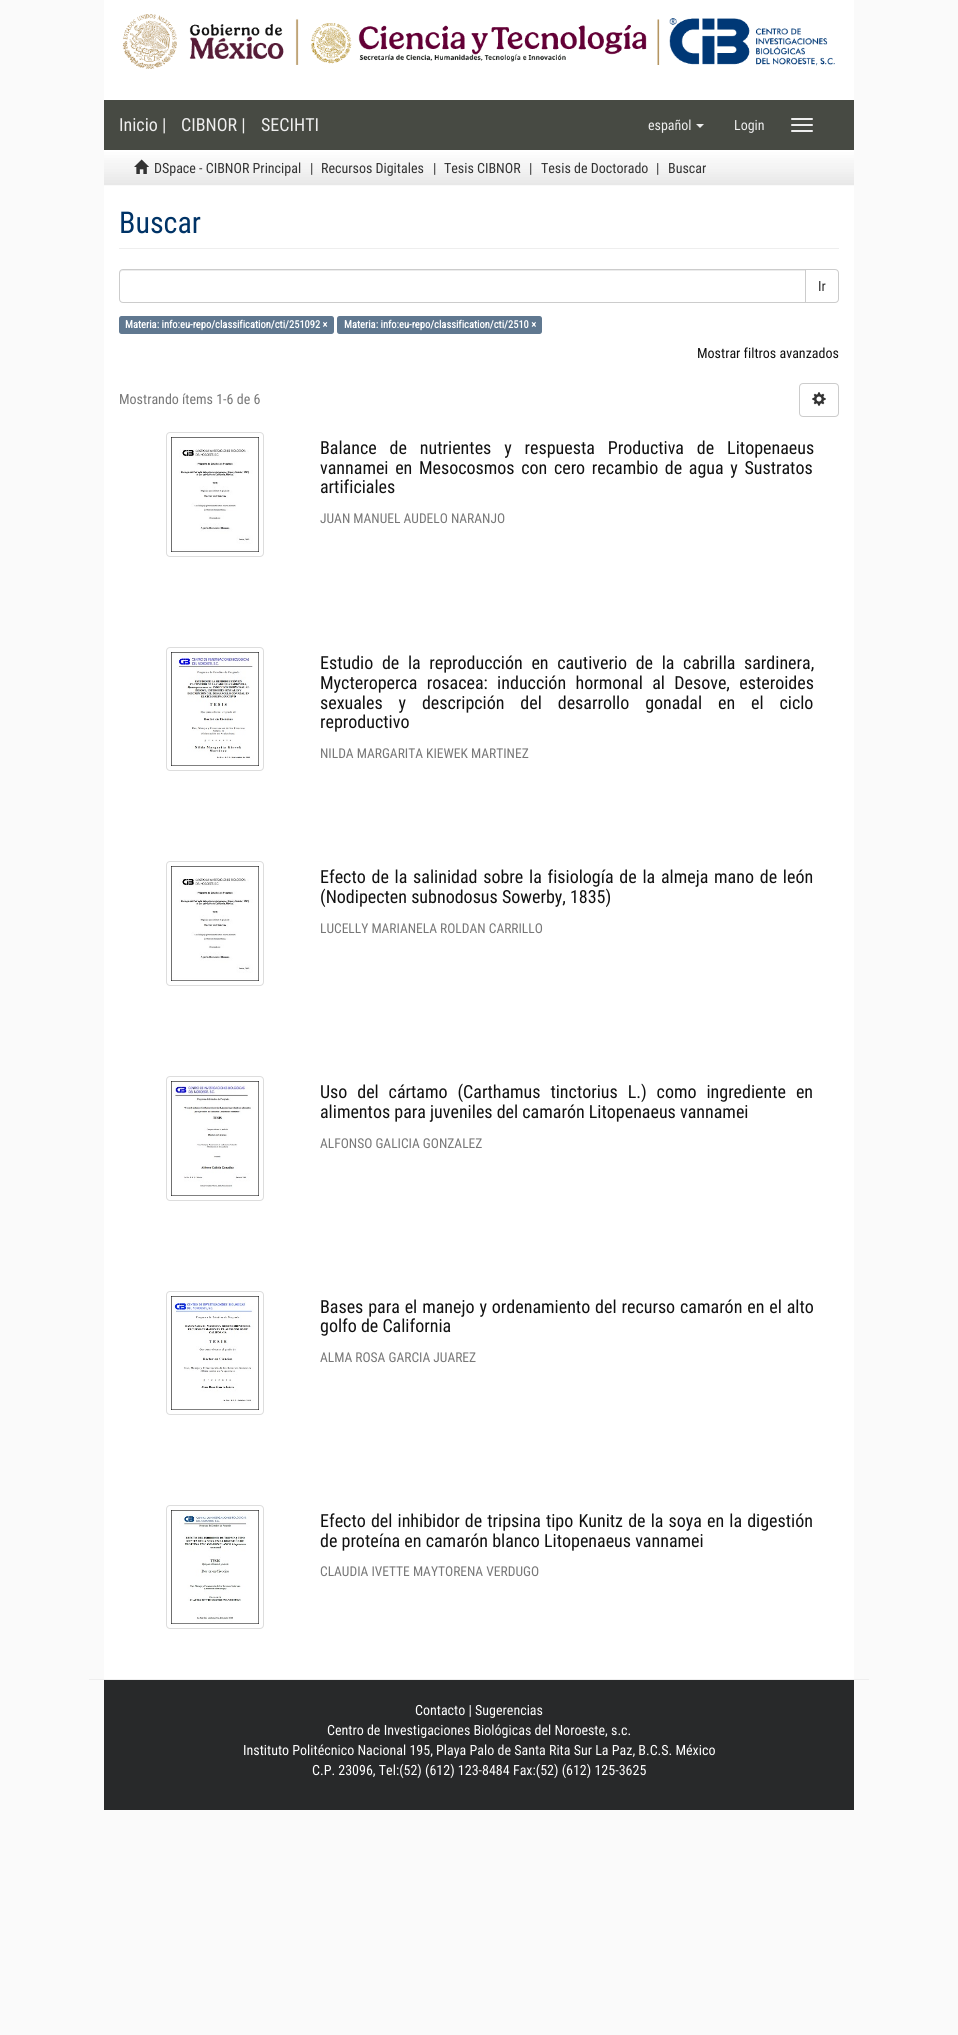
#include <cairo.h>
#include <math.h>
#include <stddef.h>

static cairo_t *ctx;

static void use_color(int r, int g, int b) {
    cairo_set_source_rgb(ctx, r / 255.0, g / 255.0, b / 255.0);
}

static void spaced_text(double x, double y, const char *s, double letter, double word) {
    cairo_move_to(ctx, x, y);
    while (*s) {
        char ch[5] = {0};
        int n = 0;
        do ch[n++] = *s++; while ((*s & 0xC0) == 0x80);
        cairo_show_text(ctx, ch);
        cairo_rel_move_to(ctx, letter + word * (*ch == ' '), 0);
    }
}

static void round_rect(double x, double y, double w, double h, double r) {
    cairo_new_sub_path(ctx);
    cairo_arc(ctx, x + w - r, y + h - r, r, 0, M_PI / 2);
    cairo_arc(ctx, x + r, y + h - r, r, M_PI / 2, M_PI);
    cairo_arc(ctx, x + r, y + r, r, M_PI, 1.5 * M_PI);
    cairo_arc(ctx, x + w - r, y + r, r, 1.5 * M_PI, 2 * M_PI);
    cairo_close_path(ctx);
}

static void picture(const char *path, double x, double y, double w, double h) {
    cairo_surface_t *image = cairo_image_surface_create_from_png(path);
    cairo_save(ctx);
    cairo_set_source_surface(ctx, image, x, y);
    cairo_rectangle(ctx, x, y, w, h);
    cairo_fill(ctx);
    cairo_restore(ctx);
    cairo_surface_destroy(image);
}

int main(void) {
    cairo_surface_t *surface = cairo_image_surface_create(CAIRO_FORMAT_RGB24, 958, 2035);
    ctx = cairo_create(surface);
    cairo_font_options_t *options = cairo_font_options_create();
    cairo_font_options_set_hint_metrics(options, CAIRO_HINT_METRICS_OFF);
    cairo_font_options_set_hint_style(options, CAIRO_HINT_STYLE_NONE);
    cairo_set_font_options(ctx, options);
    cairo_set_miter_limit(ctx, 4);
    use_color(250, 250, 250);
    cairo_paint(ctx);
    use_color(255, 255, 255);
    cairo_rectangle(ctx, 104, 0, 750, 100);
    cairo_fill(ctx);
    picture("img1.png", 122, 14, 713, 55);
    use_color(71, 74, 67);
    cairo_rectangle(ctx, 104, 100, 750, 50);
    cairo_fill(ctx);
    cairo_select_font_face(ctx, "Roboto Condensed", CAIRO_FONT_SLANT_NORMAL, CAIRO_FONT_WEIGHT_NORMAL);
    cairo_set_font_size(ctx, 18);
    use_color(238, 238, 238);
    cairo_move_to(ctx, 119, 131);
    cairo_show_text(ctx, "Inicio |");
    cairo_move_to(ctx, 181, 131);
    cairo_show_text(ctx, "CIBNOR |");
    cairo_move_to(ctx, 261, 131);
    cairo_show_text(ctx, "SECIHTI");
    cairo_set_font_size(ctx, 14);
    cairo_move_to(ctx, 648, 130);
    cairo_show_text(ctx, "español");
    cairo_new_path(ctx);
    cairo_move_to(ctx, 696, 124);
    cairo_line_to(ctx, 704, 124);
    cairo_line_to(ctx, 700, 128);
    cairo_close_path(ctx);
    cairo_fill(ctx);
    cairo_move_to(ctx, 734, 130);
    cairo_show_text(ctx, "Login");
    round_rect(791, 118, 22, 2, 1);
    cairo_fill(ctx);
    round_rect(791, 124, 22, 2, 1);
    cairo_fill(ctx);
    round_rect(791, 130, 22, 2, 1);
    cairo_fill(ctx);
    picture("img2.png", 104, 150, 750, 35);
    picture("img3.png", 134, 159, 15, 15);
    use_color(51, 51, 51);
    cairo_move_to(ctx, 154, 173);
    cairo_show_text(ctx, "DSpace - CIBNOR Principal");
    cairo_move_to(ctx, 310, 173);
    cairo_show_text(ctx, "|");
    cairo_move_to(ctx, 321, 173);
    cairo_show_text(ctx, "Recursos Digitales");
    cairo_move_to(ctx, 433, 173);
    cairo_show_text(ctx, "|");
    cairo_move_to(ctx, 444, 173);
    cairo_show_text(ctx, "Tesis CIBNOR");
    cairo_move_to(ctx, 529, 173);
    cairo_show_text(ctx, "|");
    cairo_move_to(ctx, 541, 173);
    cairo_show_text(ctx, "Tesis de Doctorado");
    cairo_move_to(ctx, 656, 173);
    cairo_show_text(ctx, "|");
    cairo_move_to(ctx, 668, 173);
    cairo_show_text(ctx, "Buscar");
    use_color(255, 255, 255);
    cairo_rectangle(ctx, 104, 186, 750, 1493);
    cairo_fill(ctx);
    use_color(238, 238, 238);
    cairo_rectangle(ctx, 119, 248, 720, 1);
    cairo_fill(ctx);
    cairo_set_font_size(ctx, 30);
    use_color(0, 51, 102);
    cairo_move_to(ctx, 119, 233);
    cairo_show_text(ctx, "Buscar");
    cairo_new_path(ctx);
    cairo_move_to(ctx, 805.5, 269.5);
    cairo_line_to(ctx, 835, 269.5);
    cairo_curve_to(ctx, 837, 269.5, 838.5, 271, 838.5, 273);
    cairo_line_to(ctx, 838.5, 299);
    cairo_curve_to(ctx, 838.5, 301, 837, 302.5, 835, 302.5);
    cairo_line_to(ctx, 805.5, 302.5);
    cairo_close_path(ctx);
    use_color(204, 204, 204);
    cairo_set_line_width(ctx, 1);
    cairo_stroke(ctx);
    use_color(255, 255, 255);
    cairo_new_path(ctx);
    cairo_move_to(ctx, 123, 269);
    cairo_line_to(ctx, 806, 269);
    cairo_line_to(ctx, 806, 303);
    cairo_line_to(ctx, 123, 303);
    cairo_curve_to(ctx, 121, 303, 119, 301, 119, 299);
    cairo_line_to(ctx, 119, 273);
    cairo_curve_to(ctx, 119, 271, 121, 269, 123, 269);
    cairo_close_path(ctx);
    cairo_fill(ctx);
    use_color(236, 236, 236);
    cairo_new_path(ctx);
    cairo_move_to(ctx, 123, 271);
    cairo_line_to(ctx, 805, 271);
    cairo_line_to(ctx, 805, 270);
    cairo_line_to(ctx, 123, 270);
    cairo_curve_to(ctx, 121, 270, 120, 271, 120, 273);
    cairo_line_to(ctx, 120, 274);
    cairo_curve_to(ctx, 120, 272, 121, 271, 123, 271);
    cairo_close_path(ctx);
    cairo_fill(ctx);
    cairo_new_path(ctx);
    cairo_move_to(ctx, 123, 269.5);
    cairo_line_to(ctx, 805.5, 269.5);
    cairo_line_to(ctx, 805.5, 302.5);
    cairo_line_to(ctx, 123, 302.5);
    cairo_curve_to(ctx, 121, 302.5, 119.5, 301, 119.5, 299);
    cairo_line_to(ctx, 119.5, 273);
    cairo_curve_to(ctx, 119.5, 271, 121, 269.5, 123, 269.5);
    cairo_close_path(ctx);
    use_color(204, 204, 204);
    cairo_stroke(ctx);
    cairo_set_font_size(ctx, 14);
    use_color(51, 51, 51);
    cairo_move_to(ctx, 818, 291);
    cairo_show_text(ctx, "Ir");
    use_color(96, 120, 144);
    round_rect(119, 316, 215, 18, 2.5);
    cairo_fill(ctx);
    cairo_select_font_face(ctx, "Roboto Condensed", CAIRO_FONT_SLANT_NORMAL, CAIRO_FONT_WEIGHT_BOLD);
    cairo_set_font_size(ctx, 10.5);
    use_color(255, 255, 255);
    cairo_move_to(ctx, 125, 328);
    cairo_show_text(ctx, "Materia: info:eu-repo/classification/cti/251092 ×");
    use_color(96, 120, 144);
    round_rect(337, 316, 205, 18, 2.5);
    cairo_fill(ctx);
    use_color(255, 255, 255);
    cairo_move_to(ctx, 344, 328);
    cairo_show_text(ctx, "Materia: info:eu-repo/classification/cti/2510 ×");
    cairo_select_font_face(ctx, "Roboto Condensed", CAIRO_FONT_SLANT_NORMAL, CAIRO_FONT_WEIGHT_NORMAL);
    cairo_set_font_size(ctx, 14);
    use_color(17, 17, 17);
    cairo_move_to(ctx, 697, 358);
    cairo_show_text(ctx, "Mostrar filtros avanzados");
    use_color(119, 119, 119);
    cairo_move_to(ctx, 119, 404);
    cairo_show_text(ctx, "Mostrando ítems 1-6 de 6");
    round_rect(799.5, 383.5, 39, 33, 3.5);
    use_color(204, 204, 204);
    cairo_stroke(ctx);
    picture("img4.png", 812, 392, 14, 14);
    round_rect(166.5, 432.5, 97, 124, 3.5);
    use_color(221, 221, 221);
    cairo_stroke(ctx);
    picture("img5.png", 171, 437, 88, 115);
    cairo_set_font_size(ctx, 18);
    use_color(17, 17, 17);
    spaced_text(320, 454, "Balance de nutrientes y respuesta Productiva de Litopenaeus", 0, 8.75);
    spaced_text(320, 474, "vannamei en Mesocosmos con cero recambio de agua y Sustratos", 0, 2.5);
    cairo_move_to(ctx, 320, 493);
    cairo_show_text(ctx, "artificiales");
    cairo_set_font_size(ctx, 13.5);
    use_color(119, 119, 119);
    cairo_move_to(ctx, 320, 523);
    cairo_show_text(ctx, "JUAN MANUEL AUDELO NARANJO");
    round_rect(166.5, 647.5, 97, 123, 3.5);
    use_color(221, 221, 221);
    cairo_stroke(ctx);
    picture("img6.png", 171, 652, 88, 114);
    cairo_set_font_size(ctx, 18);
    use_color(17, 17, 17);
    spaced_text(320, 669, "Estudio de la reproducción en cautiverio de la cabrilla sardinera,", 0, 4.5);
    spaced_text(320, 689, "Mycteroperca rosacea: inducción hormonal al Desove, esteroides", 0, 5.25);
    spaced_text(320, 709, "sexuales y descripción del desarrollo gonadal en el ciclo", 0, 11.75);
    cairo_move_to(ctx, 320, 728);
    cairo_show_text(ctx, "reproductivo");
    cairo_set_font_size(ctx, 13.5);
    use_color(119, 119, 119);
    cairo_move_to(ctx, 320, 758);
    cairo_show_text(ctx, "NILDA MARGARITA KIEWEK MARTINEZ");
    round_rect(166.5, 861.5, 97, 124, 3.5);
    use_color(221, 221, 221);
    cairo_stroke(ctx);
    picture("img7.png", 171, 866, 88, 115);
    cairo_set_font_size(ctx, 18);
    use_color(17, 17, 17);
    spaced_text(320, 883, "Efecto de la salinidad sobre la fisiología de la almeja mano de león", 0, 1.6);
    cairo_move_to(ctx, 320, 903);
    cairo_show_text(ctx, "(Nodipecten subnodosus Sowerby, 1835)");
    cairo_set_font_size(ctx, 13.5);
    use_color(119, 119, 119);
    cairo_move_to(ctx, 320, 933);
    cairo_show_text(ctx, "LUCELLY MARIANELA ROLDAN CARRILLO");
    round_rect(166.5, 1076.5, 97, 124, 3.5);
    use_color(221, 221, 221);
    cairo_stroke(ctx);
    picture("img8.png", 171, 1081, 88, 115);
    cairo_set_font_size(ctx, 18);
    use_color(17, 17, 17);
    spaced_text(320, 1098, "Uso del cártamo (Carthamus tinctorius L.) como ingrediente en", 0, 5.75);
    cairo_move_to(ctx, 320, 1118);
    cairo_show_text(ctx, "alimentos para juveniles del camarón Litopenaeus vannamei");
    cairo_set_font_size(ctx, 13.5);
    use_color(119, 119, 119);
    cairo_move_to(ctx, 320, 1148);
    cairo_show_text(ctx, "ALFONSO GALICIA GONZALEZ");
    round_rect(166.5, 1291.5, 97, 123, 3.5);
    use_color(221, 221, 221);
    cairo_stroke(ctx);
    picture("img9.png", 171, 1296, 88, 114);
    cairo_set_font_size(ctx, 18);
    use_color(17, 17, 17);
    spaced_text(320, 1313, "Bases para el manejo y ordenamiento del recurso camarón en el alto", 0, 0.75);
    cairo_move_to(ctx, 320, 1332);
    cairo_show_text(ctx, "golfo de California");
    cairo_set_font_size(ctx, 13.5);
    use_color(119, 119, 119);
    cairo_move_to(ctx, 320, 1362);
    cairo_show_text(ctx, "ALMA ROSA GARCIA JUAREZ");
    round_rect(166.5, 1505.5, 97, 123, 3.5);
    use_color(221, 221, 221);
    cairo_stroke(ctx);
    picture("img10.png", 171, 1510, 88, 114);
    cairo_set_font_size(ctx, 18);
    use_color(17, 17, 17);
    spaced_text(320, 1527, "Efecto del inhibidor de tripsina tipo Kunitz de la soya en la digestión", 0, 1);
    cairo_move_to(ctx, 320, 1547);
    cairo_show_text(ctx, "de proteína en camarón blanco Litopenaeus vannamei");
    cairo_set_font_size(ctx, 13.5);
    use_color(119, 119, 119);
    cairo_move_to(ctx, 320, 1576);
    cairo_show_text(ctx, "CLAUDIA IVETTE MAYTORENA VERDUGO");
    use_color(40, 41, 42);
    cairo_rectangle(ctx, 104, 1680, 750, 130);
    cairo_fill(ctx);
    use_color(238, 238, 238);
    cairo_rectangle(ctx, 89, 1679, 780, 1);
    cairo_fill(ctx);
    cairo_set_font_size(ctx, 14);
    use_color(255, 255, 255);
    cairo_move_to(ctx, 415, 1715);
    cairo_show_text(ctx, "Contacto | Sugerencias");
    cairo_move_to(ctx, 327, 1735);
    cairo_show_text(ctx, "Centro de Investigaciones Biológicas del Noroeste, s.c.");
    cairo_move_to(ctx, 243, 1755);
    cairo_show_text(ctx, "Instituto Politécnico Nacional 195, Playa Palo de Santa Rita Sur La Paz, B.C.S. México");
    cairo_move_to(ctx, 312, 1775);
    cairo_show_text(ctx, "C.P. 23096, Tel:(52) (612) 123-8484 Fax:(52) (612) 125-3625");
    cairo_surface_write_to_png(surface, "result.png");
    cairo_font_options_destroy(options);
    cairo_destroy(ctx);
    cairo_surface_destroy(surface);
    return 0;
}
